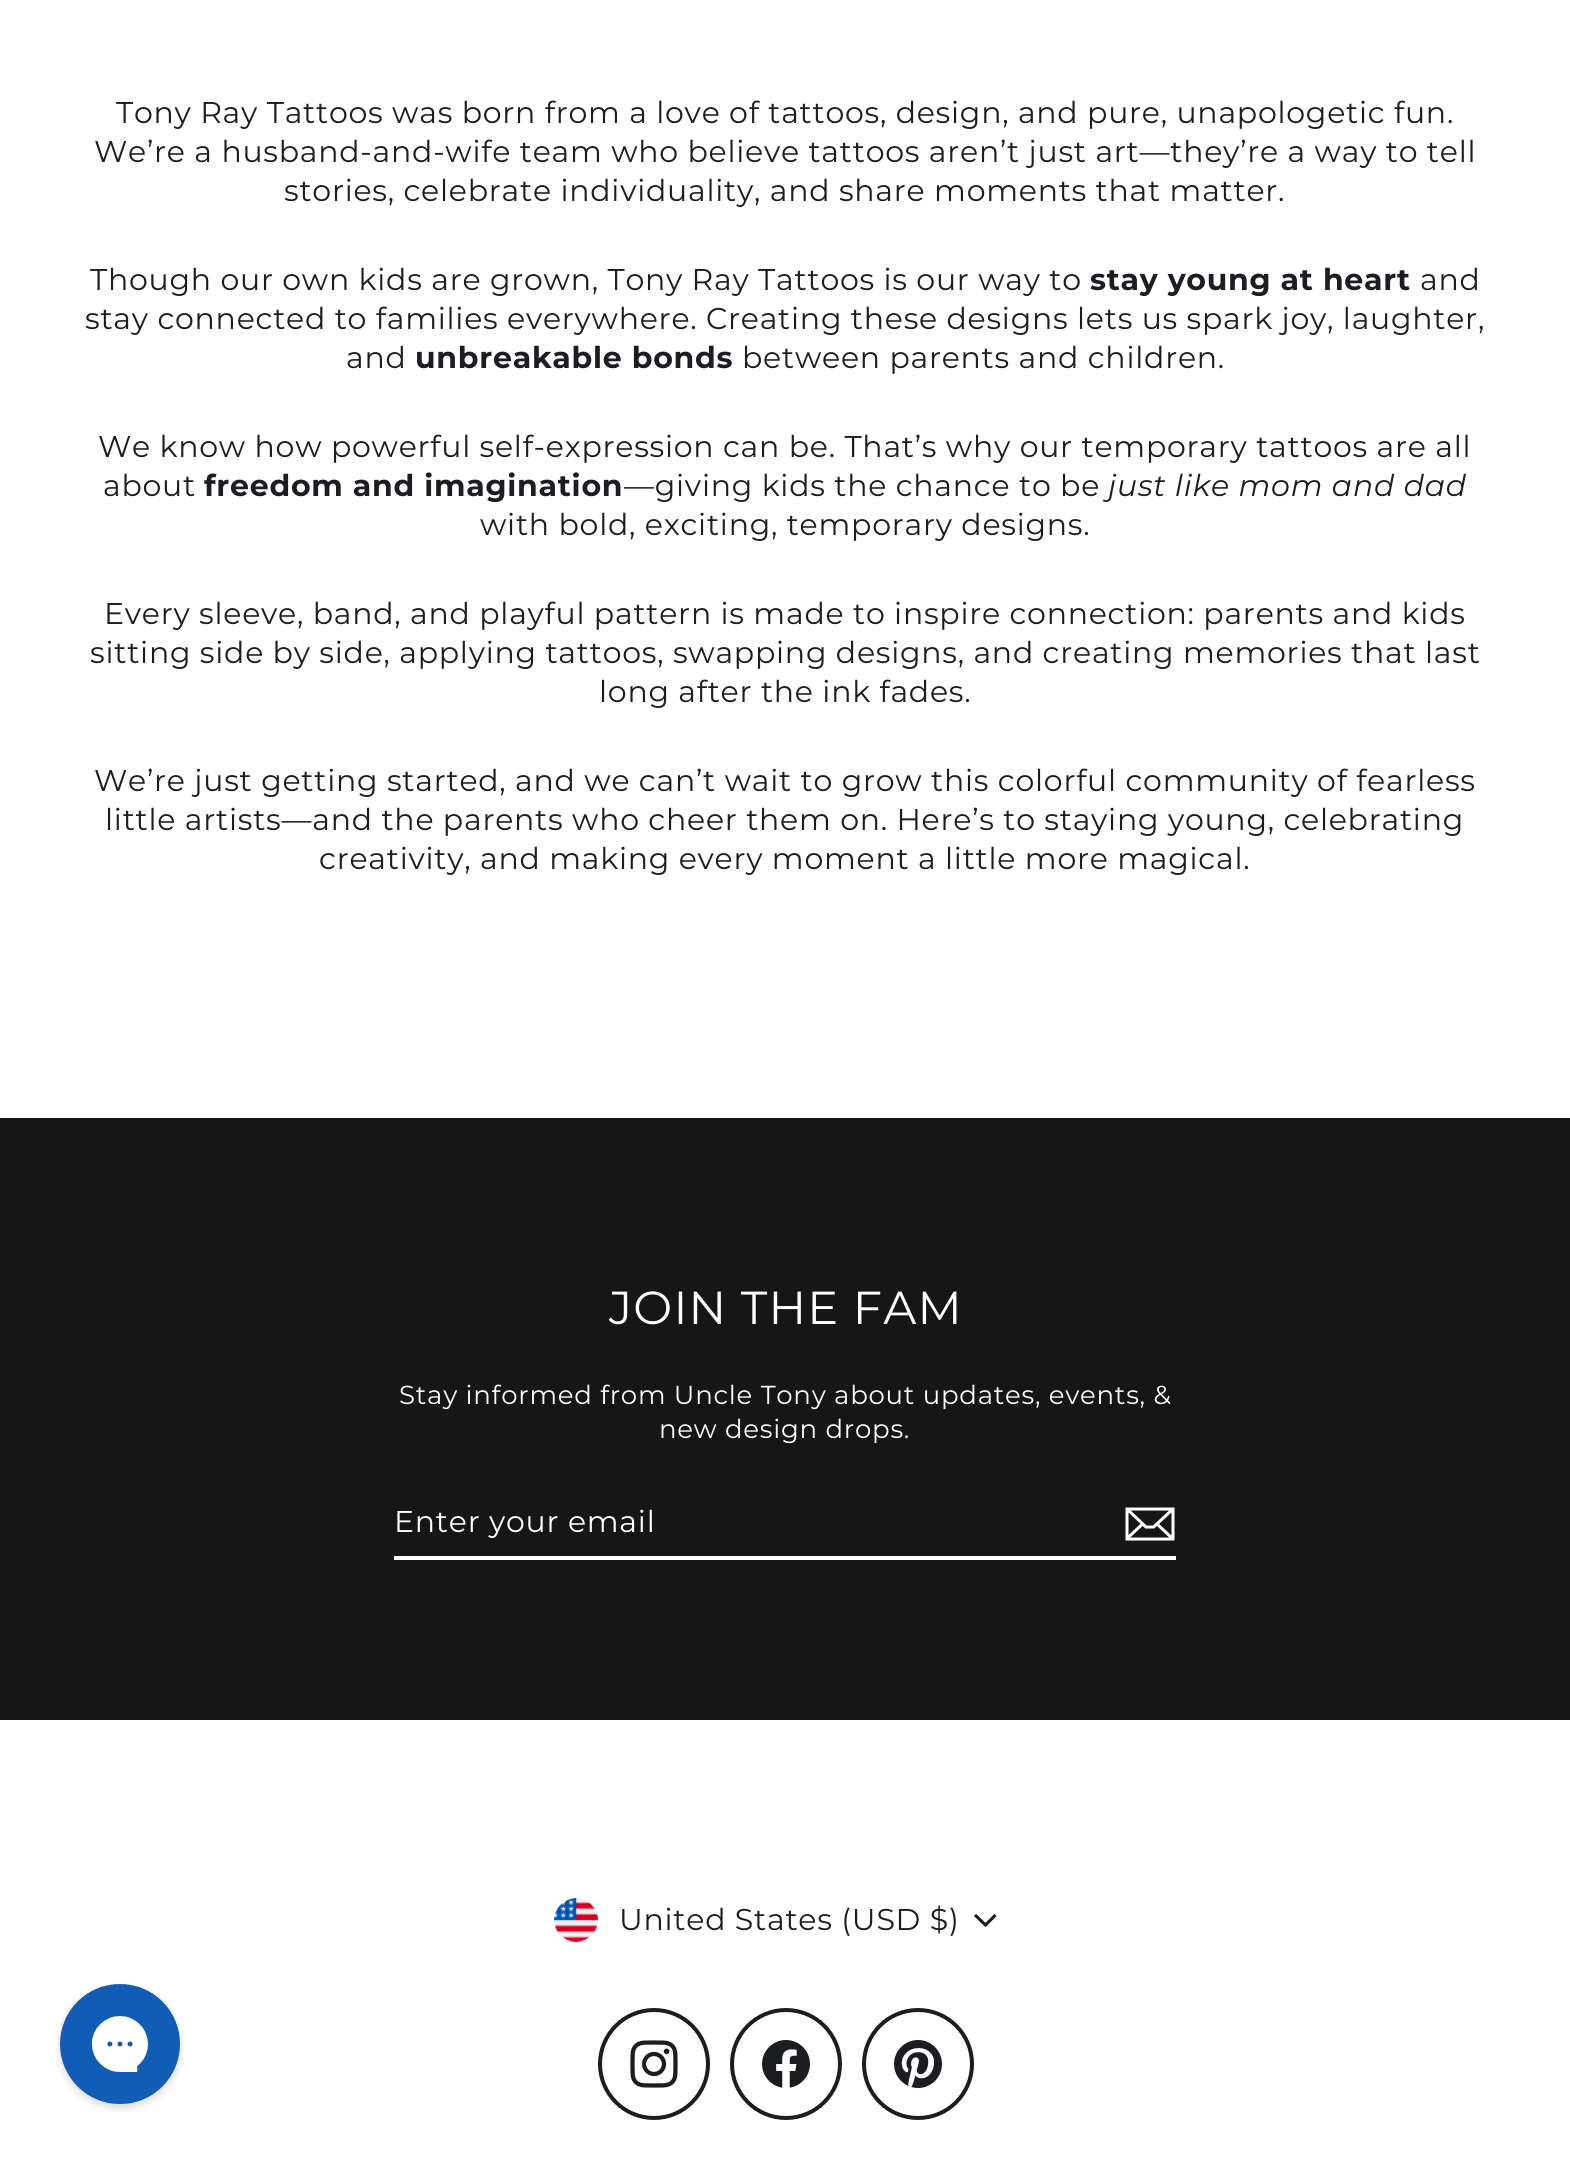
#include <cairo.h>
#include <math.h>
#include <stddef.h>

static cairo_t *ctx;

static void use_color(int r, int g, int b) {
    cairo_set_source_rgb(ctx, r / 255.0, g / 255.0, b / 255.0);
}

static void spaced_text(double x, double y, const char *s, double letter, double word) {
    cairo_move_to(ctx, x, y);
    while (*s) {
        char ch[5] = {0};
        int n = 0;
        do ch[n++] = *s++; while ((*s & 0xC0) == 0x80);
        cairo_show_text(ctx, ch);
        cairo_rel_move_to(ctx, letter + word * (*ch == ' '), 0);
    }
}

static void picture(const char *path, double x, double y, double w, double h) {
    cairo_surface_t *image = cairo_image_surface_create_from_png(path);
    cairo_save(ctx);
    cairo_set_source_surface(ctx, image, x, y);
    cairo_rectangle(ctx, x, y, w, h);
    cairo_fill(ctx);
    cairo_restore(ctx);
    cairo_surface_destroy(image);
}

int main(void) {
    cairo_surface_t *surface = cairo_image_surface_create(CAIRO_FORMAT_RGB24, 1570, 2157);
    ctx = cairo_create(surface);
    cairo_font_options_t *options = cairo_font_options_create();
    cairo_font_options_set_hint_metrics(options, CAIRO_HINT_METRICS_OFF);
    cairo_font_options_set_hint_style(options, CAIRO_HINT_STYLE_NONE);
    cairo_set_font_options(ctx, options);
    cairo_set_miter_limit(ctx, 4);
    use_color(255, 255, 255);
    cairo_paint(ctx);
    cairo_select_font_face(ctx, "Montserrat", CAIRO_FONT_SLANT_NORMAL, CAIRO_FONT_WEIGHT_NORMAL);
    cairo_set_font_size(ctx, 30);
    use_color(28, 29, 33);
    spaced_text(116, 123, "Tony Ray Tattoos was born from a love of tattoos, design, and pure, unapologetic fun.", 0.75, 0);
    spaced_text(94, 162, "We’re a husband-and-wife team who believe tattoos aren’t just art—they’re a way to tell", 0.75, 0);
    spaced_text(284, 201, "stories, celebrate individuality, and share moments that matter.", 0.75, 0);
    spaced_text(90, 290, "Though our own kids are grown, Tony Ray Tattoos is our way to", 0.75, 0);
    cairo_select_font_face(ctx, "Montserrat", CAIRO_FONT_SLANT_NORMAL, CAIRO_FONT_WEIGHT_BOLD);
    spaced_text(1090, 290, "stay young at heart", 0.75, 0);
    cairo_select_font_face(ctx, "Montserrat", CAIRO_FONT_SLANT_NORMAL, CAIRO_FONT_WEIGHT_NORMAL);
    spaced_text(1420, 290, "and", 0.75, 0);
    spaced_text(85, 329, "stay connected to families everywhere. Creating these designs lets us spark joy, laughter,", 0.75, 0);
    spaced_text(346, 368, "and", 0.75, 0);
    cairo_select_font_face(ctx, "Montserrat", CAIRO_FONT_SLANT_NORMAL, CAIRO_FONT_WEIGHT_BOLD);
    spaced_text(415, 368, "unbreakable bonds", 0.75, 0);
    cairo_select_font_face(ctx, "Montserrat", CAIRO_FONT_SLANT_NORMAL, CAIRO_FONT_WEIGHT_NORMAL);
    spaced_text(742, 368, "between parents and children.", 0.75, 0);
    spaced_text(98, 457, "We know how powerful self-expression can be. That’s why our temporary tattoos are all", 0.75, 0);
    spaced_text(103, 496, "about", 0.75, 0);
    cairo_select_font_face(ctx, "Montserrat", CAIRO_FONT_SLANT_NORMAL, CAIRO_FONT_WEIGHT_BOLD);
    spaced_text(204, 496, "freedom and imagination", 0.75, 0);
    cairo_select_font_face(ctx, "Montserrat", CAIRO_FONT_SLANT_NORMAL, CAIRO_FONT_WEIGHT_NORMAL);
    spaced_text(624, 496, "—giving kids the chance to be", 0.75, 0);
    cairo_select_font_face(ctx, "Montserrat", CAIRO_FONT_SLANT_ITALIC, CAIRO_FONT_WEIGHT_NORMAL);
    spaced_text(1108, 496, "just like mom and dad", 0.75, 0);
    cairo_select_font_face(ctx, "Montserrat", CAIRO_FONT_SLANT_NORMAL, CAIRO_FONT_WEIGHT_NORMAL);
    spaced_text(480, 535, "with bold, exciting, temporary designs.", 0.75, 0);
    spaced_text(104, 624, "Every sleeve, band, and playful pattern is made to inspire connection: parents and kids", 0.75, 0);
    spaced_text(90, 663, "sitting side by side, applying tattoos, swapping designs, and creating memories that last", 0.75, 0);
    spaced_text(599, 702, "long after the ink fades.", 0.75, 0);
    spaced_text(94, 791, "We’re just getting started, and we can’t wait to grow this colorful community of fearless", 0.75, 0);
    spaced_text(105, 830, "little artists—and the parents who cheer them on. Here’s to staying young, celebrating", 0.75, 0);
    spaced_text(319, 869, "creativity, and making every moment a little more magical.", 0.75, 0);
    use_color(22, 22, 22);
    cairo_rectangle(ctx, 0, 1118, 1570, 602);
    cairo_fill(ctx);
    cairo_set_font_size(ctx, 46.25);
    use_color(255, 255, 255);
    spaced_text(609, 1324, "JOIN THE FAM", 1.2, 0);
    cairo_set_font_size(ctx, 26);
    spaced_text(399, 1404, "Stay informed from Uncle Tony about updates, events, &", 0.75, 0);
    spaced_text(659, 1438, "new design drops.", 0.75, 0);
    cairo_rectangle(ctx, 394, 1556, 782, 4);
    cairo_fill(ctx);
    cairo_set_font_size(ctx, 30);
    spaced_text(394, 1532, "Enter your email", 0.75, 0);
    cairo_new_path(ctx);
    cairo_move_to(ctx, 1173, 1539);
    cairo_line_to(ctx, 1127, 1539);
    cairo_line_to(ctx, 1127, 1509);
    cairo_line_to(ctx, 1173, 1509);
    cairo_close_path(ctx);
    cairo_move_to(ctx, 1127, 1509);
    cairo_line_to(ctx, 1146, 1527);
    cairo_line_to(ctx, 1153.5, 1527);
    cairo_line_to(ctx, 1173, 1509);
    cairo_move_to(ctx, 1142.5, 1524);
    cairo_line_to(ctx, 1127, 1538.5);
    cairo_move_to(ctx, 1173, 1539);
    cairo_line_to(ctx, 1157, 1524);
    cairo_set_line_width(ctx, 3);
    cairo_stroke(ctx);
    picture("img1.png", 554, 1898, 44, 44);
    use_color(28, 29, 33);
    spaced_text(619, 1930, "United States (USD $)", 0.75, 0);
    cairo_new_path(ctx);
    cairo_move_to(ctx, 975, 1915);
    cairo_line_to(ctx, 985.5, 1925);
    cairo_line_to(ctx, 995.5, 1915);
    cairo_set_line_width(ctx, 3.1);
    cairo_stroke(ctx);
    cairo_arc(ctx, 654, 2064, 54, 0, 2 * M_PI);
    cairo_set_line_width(ctx, 4);
    cairo_stroke(ctx);
    picture("img2.png", 630, 2040, 48, 48);
    cairo_arc(ctx, 786, 2064, 54, 0, 2 * M_PI);
    cairo_stroke(ctx);
    picture("img3.png", 762, 2040, 48, 48);
    cairo_arc(ctx, 918, 2064, 54, 0, 2 * M_PI);
    cairo_stroke(ctx);
    picture("img4.png", 894, 2040, 48, 48);
    picture("img5.png", 56, 1984, 128, 128);
    cairo_surface_write_to_png(surface, "result.png");
    cairo_font_options_destroy(options);
    cairo_destroy(ctx);
    cairo_surface_destroy(surface);
    return 0;
}
